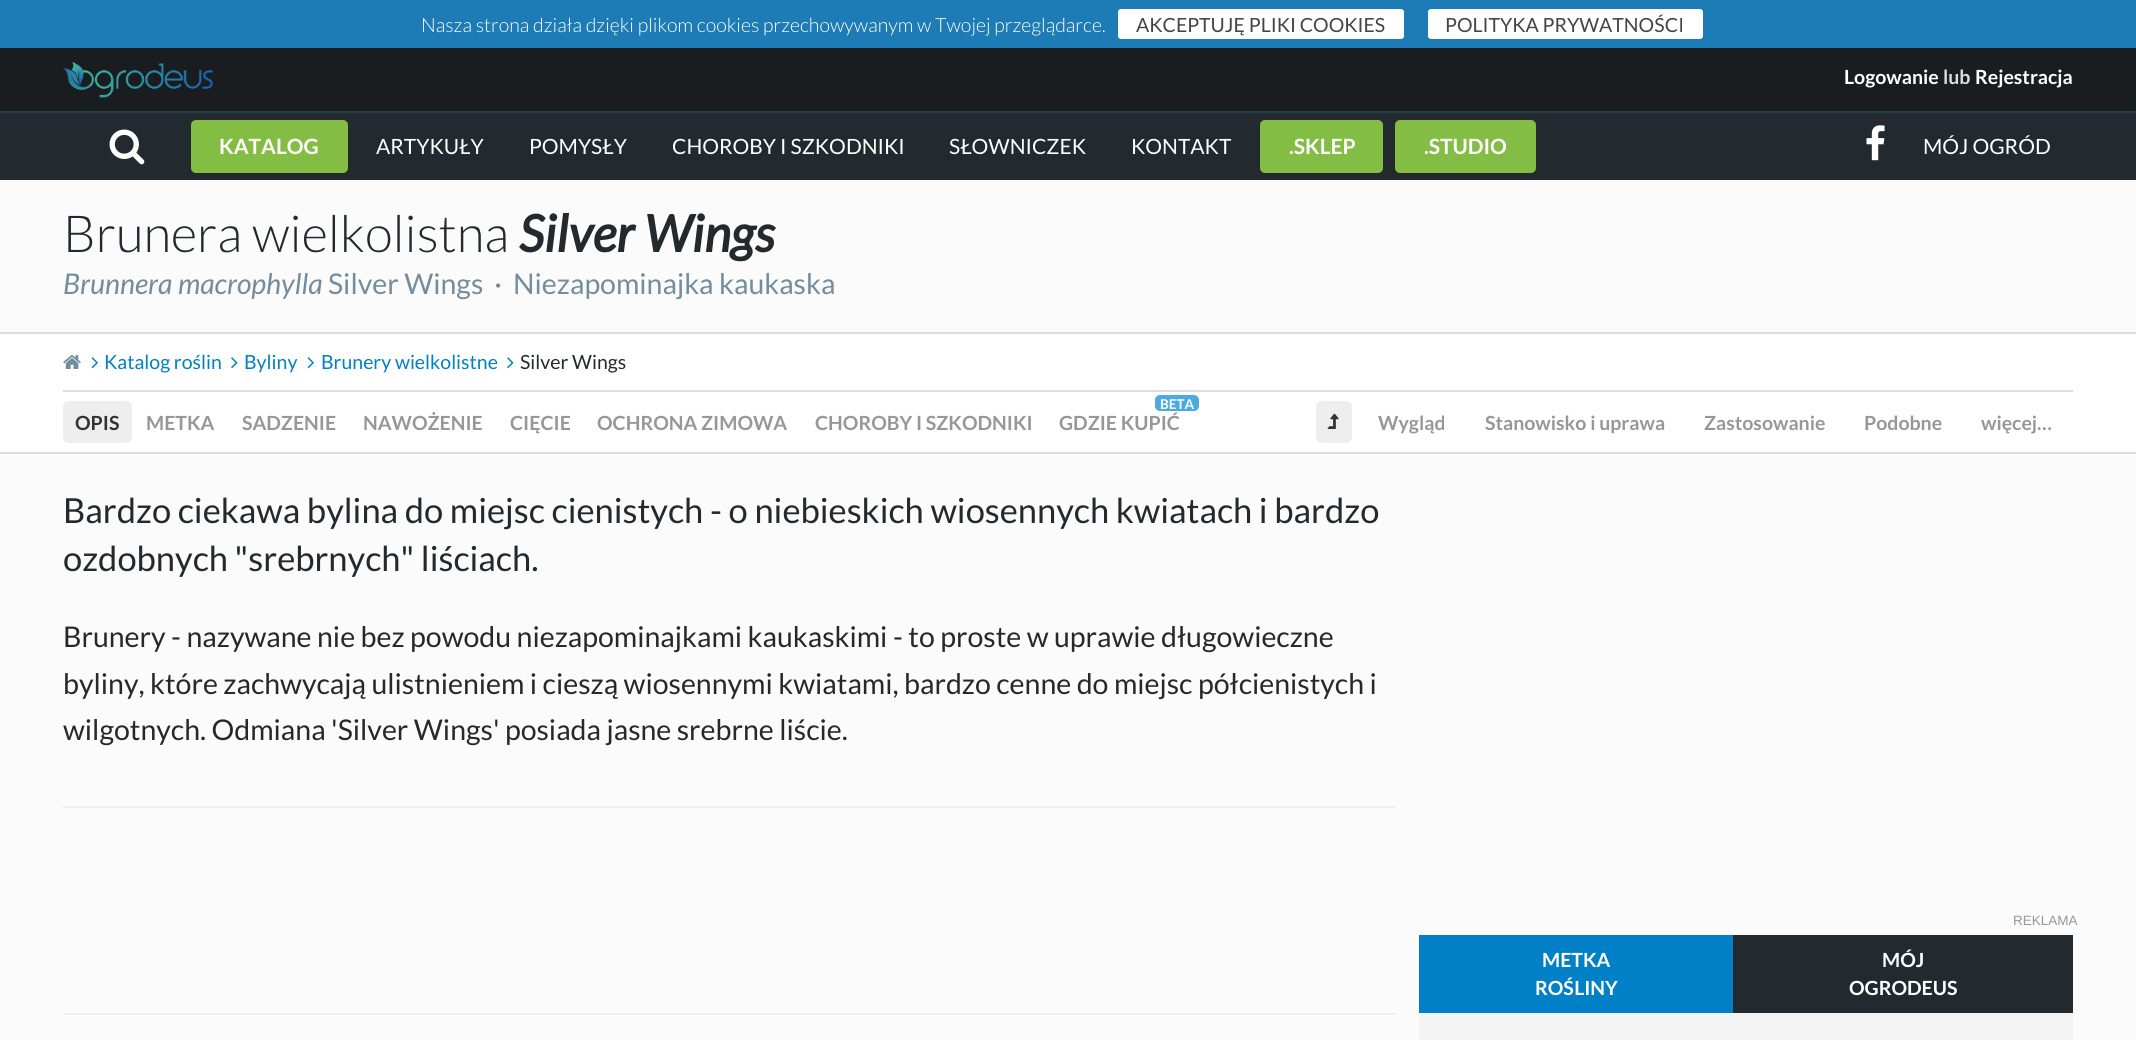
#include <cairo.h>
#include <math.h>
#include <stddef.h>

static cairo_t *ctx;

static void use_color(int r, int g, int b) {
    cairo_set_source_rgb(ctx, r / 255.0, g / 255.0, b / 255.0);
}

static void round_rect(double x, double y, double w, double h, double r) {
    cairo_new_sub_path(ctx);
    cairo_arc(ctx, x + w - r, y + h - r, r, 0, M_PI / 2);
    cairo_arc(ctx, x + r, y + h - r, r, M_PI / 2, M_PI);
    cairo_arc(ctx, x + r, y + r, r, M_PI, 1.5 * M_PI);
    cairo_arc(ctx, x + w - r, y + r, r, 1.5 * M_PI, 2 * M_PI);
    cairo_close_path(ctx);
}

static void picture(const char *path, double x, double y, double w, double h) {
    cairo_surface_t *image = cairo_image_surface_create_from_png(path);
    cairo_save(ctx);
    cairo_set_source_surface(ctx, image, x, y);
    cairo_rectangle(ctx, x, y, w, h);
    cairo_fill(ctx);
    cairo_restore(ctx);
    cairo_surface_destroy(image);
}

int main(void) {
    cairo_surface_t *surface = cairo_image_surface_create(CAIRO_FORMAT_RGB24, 2136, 1040);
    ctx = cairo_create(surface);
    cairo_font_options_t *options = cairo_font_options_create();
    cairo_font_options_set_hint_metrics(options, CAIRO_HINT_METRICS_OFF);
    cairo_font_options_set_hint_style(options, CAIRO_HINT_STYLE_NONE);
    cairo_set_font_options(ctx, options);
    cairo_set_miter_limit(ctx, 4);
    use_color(251, 251, 251);
    cairo_paint(ctx);
    use_color(29, 124, 181);
    cairo_rectangle(ctx, 0, 0, 2136, 48);
    cairo_fill(ctx);
    cairo_select_font_face(ctx, "Lato Light", CAIRO_FONT_SLANT_NORMAL, CAIRO_FONT_WEIGHT_NORMAL);
    cairo_set_font_size(ctx, 19.5);
    use_color(255, 255, 255);
    cairo_move_to(ctx, 421, 32);
    cairo_show_text(ctx, "Nasza strona działa dzięki plikom cookies przechowywanym w Twojej przeglądarce.");
    round_rect(1118, 9, 286, 30, 3);
    cairo_fill(ctx);
    cairo_select_font_face(ctx, "Lato", CAIRO_FONT_SLANT_NORMAL, CAIRO_FONT_WEIGHT_NORMAL);
    use_color(68, 68, 68);
    cairo_move_to(ctx, 1136, 32);
    cairo_show_text(ctx, "AKCEPTUJĘ PLIKI COOKIES");
    use_color(255, 255, 255);
    round_rect(1428, 9, 275, 30, 3);
    cairo_fill(ctx);
    use_color(68, 68, 68);
    cairo_move_to(ctx, 1445, 32);
    cairo_show_text(ctx, "POLITYKA PRYWATNOŚCI");
    use_color(26, 29, 32);
    cairo_rectangle(ctx, 0, 48, 2136, 63);
    cairo_fill(ctx);
    use_color(33, 63, 65);
    cairo_rectangle(ctx, 0, 111, 2136, 2);
    cairo_fill(ctx);
    picture("img1.png", 63, 62, 150, 36);
    cairo_select_font_face(ctx, "Lato", CAIRO_FONT_SLANT_NORMAL, CAIRO_FONT_WEIGHT_BOLD);
    use_color(255, 255, 255);
    cairo_move_to(ctx, 1844, 84);
    cairo_show_text(ctx, "Logowanie");
    use_color(221, 221, 221);
    cairo_move_to(ctx, 1943, 84);
    cairo_show_text(ctx, "lub");
    use_color(255, 255, 255);
    cairo_move_to(ctx, 1975, 84);
    cairo_show_text(ctx, "Rejestracja");
    use_color(34, 42, 47);
    cairo_rectangle(ctx, 0, 113, 2136, 67);
    cairo_fill(ctx);
    picture("img2.png", 109, 129, 36, 36);
    use_color(131, 189, 67);
    round_rect(191, 120, 157, 53, 5);
    cairo_fill(ctx);
    cairo_set_font_size(ctx, 21);
    use_color(255, 255, 255);
    cairo_move_to(ctx, 219, 154);
    cairo_show_text(ctx, "KATALOG");
    cairo_select_font_face(ctx, "Lato", CAIRO_FONT_SLANT_NORMAL, CAIRO_FONT_WEIGHT_NORMAL);
    cairo_move_to(ctx, 376, 154);
    cairo_show_text(ctx, "ARTYKUŁY");
    cairo_move_to(ctx, 529, 154);
    cairo_show_text(ctx, "POMYSŁY");
    cairo_move_to(ctx, 672, 154);
    cairo_show_text(ctx, "CHOROBY I SZKODNIKI");
    cairo_move_to(ctx, 949, 154);
    cairo_show_text(ctx, "SŁOWNICZEK");
    cairo_move_to(ctx, 1131, 154);
    cairo_show_text(ctx, "KONTAKT");
    use_color(131, 189, 67);
    round_rect(1260, 120, 123, 53, 5);
    cairo_fill(ctx);
    cairo_select_font_face(ctx, "Lato", CAIRO_FONT_SLANT_NORMAL, CAIRO_FONT_WEIGHT_BOLD);
    use_color(255, 255, 255);
    cairo_move_to(ctx, 1289, 154);
    cairo_show_text(ctx, ".SKLEP");
    use_color(131, 189, 67);
    round_rect(1395, 120, 141, 53, 5);
    cairo_fill(ctx);
    use_color(255, 255, 255);
    cairo_move_to(ctx, 1424, 154);
    cairo_show_text(ctx, ".STUDIO");
    picture("img3.png", 1866, 125, 19, 36);
    cairo_select_font_face(ctx, "Lato", CAIRO_FONT_SLANT_NORMAL, CAIRO_FONT_WEIGHT_NORMAL);
    cairo_move_to(ctx, 1923, 154);
    cairo_show_text(ctx, "MÓJ OGRÓD");
    cairo_select_font_face(ctx, "Lato Light", CAIRO_FONT_SLANT_NORMAL, CAIRO_FONT_WEIGHT_NORMAL);
    cairo_set_font_size(ctx, 51);
    use_color(34, 42, 47);
    cairo_move_to(ctx, 63, 252);
    cairo_show_text(ctx, "Brunera wielkolistna");
    cairo_select_font_face(ctx, "Lato", CAIRO_FONT_SLANT_ITALIC, CAIRO_FONT_WEIGHT_BOLD);
    cairo_move_to(ctx, 519, 252);
    cairo_show_text(ctx, "Silver Wings");
    cairo_select_font_face(ctx, "Lato", CAIRO_FONT_SLANT_ITALIC, CAIRO_FONT_WEIGHT_NORMAL);
    cairo_set_font_size(ctx, 28.5);
    use_color(115, 141, 159);
    cairo_move_to(ctx, 63, 294);
    cairo_show_text(ctx, "Brunnera macrophylla");
    cairo_select_font_face(ctx, "Lato", CAIRO_FONT_SLANT_NORMAL, CAIRO_FONT_WEIGHT_NORMAL);
    cairo_move_to(ctx, 328, 294);
    cairo_show_text(ctx, "Silver Wings  ·");
    cairo_move_to(ctx, 513, 294);
    cairo_show_text(ctx, "Niezapominajka kaukaska");
    use_color(255, 255, 255);
    cairo_rectangle(ctx, 0, 334, 2136, 118);
    cairo_fill(ctx);
    use_color(221, 221, 221);
    cairo_rectangle(ctx, 0, 332, 2136, 2);
    cairo_fill(ctx);
    cairo_rectangle(ctx, 0, 452, 2136, 2);
    cairo_fill(ctx);
    use_color(222, 222, 222);
    cairo_rectangle(ctx, 63, 390, 2010, 2);
    cairo_fill(ctx);
    picture("img4.png", 63, 355, 18, 14);
    picture("img5.png", 91, 357, 7, 12);
    cairo_set_font_size(ctx, 19.5);
    use_color(0, 128, 198);
    cairo_move_to(ctx, 104, 369);
    cairo_show_text(ctx, "Katalog roślin");
    picture("img6.png", 231, 357, 7, 12);
    cairo_move_to(ctx, 244, 369);
    cairo_show_text(ctx, "Byliny");
    picture("img5.png", 307, 357, 7, 12);
    cairo_move_to(ctx, 321, 369);
    cairo_show_text(ctx, "Brunery wielkolistne");
    picture("img6.png", 507, 357, 7, 12);
    use_color(34, 42, 47);
    cairo_move_to(ctx, 520, 369);
    cairo_show_text(ctx, "Silver Wings");
    use_color(238, 238, 238);
    round_rect(63, 401, 69, 42, 6);
    cairo_fill(ctx);
    cairo_select_font_face(ctx, "Lato", CAIRO_FONT_SLANT_NORMAL, CAIRO_FONT_WEIGHT_BOLD);
    use_color(51, 51, 51);
    cairo_move_to(ctx, 75, 430);
    cairo_show_text(ctx, "OPIS");
    use_color(151, 151, 151);
    cairo_move_to(ctx, 146, 430);
    cairo_show_text(ctx, "METKA");
    cairo_move_to(ctx, 242, 430);
    cairo_show_text(ctx, "SADZENIE");
    cairo_move_to(ctx, 363, 430);
    cairo_show_text(ctx, "NAWOŻENIE");
    cairo_move_to(ctx, 510, 430);
    cairo_show_text(ctx, "CIĘCIE");
    cairo_move_to(ctx, 597, 430);
    cairo_show_text(ctx, "OCHRONA ZIMOWA");
    cairo_move_to(ctx, 815, 430);
    cairo_show_text(ctx, "CHOROBY I SZKODNIKI");
    use_color(76, 170, 226);
    round_rect(1155, 395, 44, 16, 5);
    cairo_fill(ctx);
    cairo_set_font_size(ctx, 13.5);
    use_color(255, 255, 255);
    cairo_move_to(ctx, 1160, 409);
    cairo_show_text(ctx, "BETA");
    cairo_set_font_size(ctx, 19.5);
    use_color(151, 151, 151);
    cairo_move_to(ctx, 1059, 430);
    cairo_show_text(ctx, "GDZIE KUPIĆ");
    use_color(238, 238, 238);
    round_rect(1316, 401, 36, 42, 6);
    cairo_fill(ctx);
    picture("img7.png", 1327, 413, 12, 16);
    use_color(151, 151, 151);
    cairo_move_to(ctx, 1378, 430);
    cairo_show_text(ctx, "Wygląd");
    cairo_move_to(ctx, 1485, 430);
    cairo_show_text(ctx, "Stanowisko i uprawa");
    cairo_move_to(ctx, 1704, 430);
    cairo_show_text(ctx, "Zastosowanie");
    cairo_move_to(ctx, 1864, 430);
    cairo_show_text(ctx, "Podobne");
    cairo_move_to(ctx, 1981, 430);
    cairo_show_text(ctx, "więcej…");
    cairo_select_font_face(ctx, "Lato", CAIRO_FONT_SLANT_NORMAL, CAIRO_FONT_WEIGHT_NORMAL);
    cairo_set_font_size(ctx, 34.5);
    use_color(34, 42, 47);
    cairo_move_to(ctx, 63, 523);
    cairo_show_text(ctx, "Bardzo ciekawa bylina do miejsc cienistych - o niebieskich wiosennych kwiatach i bardzo");
    cairo_move_to(ctx, 63, 571);
    cairo_show_text(ctx, "ozdobnych \"srebrnych\" liściach.");
    cairo_set_font_size(ctx, 28.5);
    use_color(40, 40, 40);
    cairo_move_to(ctx, 63, 647);
    cairo_show_text(ctx, "Brunery - nazywane nie bez powodu niezapominajkami kaukaskimi - to proste w uprawie długowieczne");
    cairo_move_to(ctx, 63, 694);
    cairo_show_text(ctx, "byliny, które zachwycają ulistnieniem i cieszą wiosennymi kwiatami, bardzo cenne do miejsc półcienistych i");
    cairo_move_to(ctx, 63, 740);
    cairo_show_text(ctx, "wilgotnych. Odmiana 'Silver Wings' posiada jasne srebrne liście.");
    use_color(238, 238, 238);
    cairo_rectangle(ctx, 63, 806, 1332, 2);
    cairo_fill(ctx);
    cairo_rectangle(ctx, 63, 1013, 1332, 2);
    cairo_fill(ctx);
    cairo_select_font_face(ctx, "Liberation Sans", CAIRO_FONT_SLANT_NORMAL, CAIRO_FONT_WEIGHT_NORMAL);
    cairo_set_font_size(ctx, 13.5);
    use_color(151, 151, 151);
    cairo_move_to(ctx, 2013, 925);
    cairo_show_text(ctx, "REKLAMA");
    use_color(0, 128, 198);
    cairo_rectangle(ctx, 1419, 935, 314, 78);
    cairo_fill(ctx);
    cairo_select_font_face(ctx, "Lato", CAIRO_FONT_SLANT_NORMAL, CAIRO_FONT_WEIGHT_BOLD);
    cairo_set_font_size(ctx, 19.5);
    use_color(255, 255, 255);
    cairo_move_to(ctx, 1542, 967);
    cairo_show_text(ctx, "METKA");
    cairo_move_to(ctx, 1535, 995);
    cairo_show_text(ctx, "ROŚLINY");
    use_color(34, 42, 47);
    cairo_rectangle(ctx, 1733, 935, 340, 78);
    cairo_fill(ctx);
    use_color(255, 255, 255);
    cairo_move_to(ctx, 1882, 967);
    cairo_show_text(ctx, "MÓJ");
    cairo_move_to(ctx, 1849, 995);
    cairo_show_text(ctx, "OGRODEUS");
    use_color(244, 244, 244);
    cairo_rectangle(ctx, 1419, 1013, 654, 27);
    cairo_fill(ctx);
    cairo_surface_write_to_png(surface, "result.png");
    cairo_font_options_destroy(options);
    cairo_destroy(ctx);
    cairo_surface_destroy(surface);
    return 0;
}
